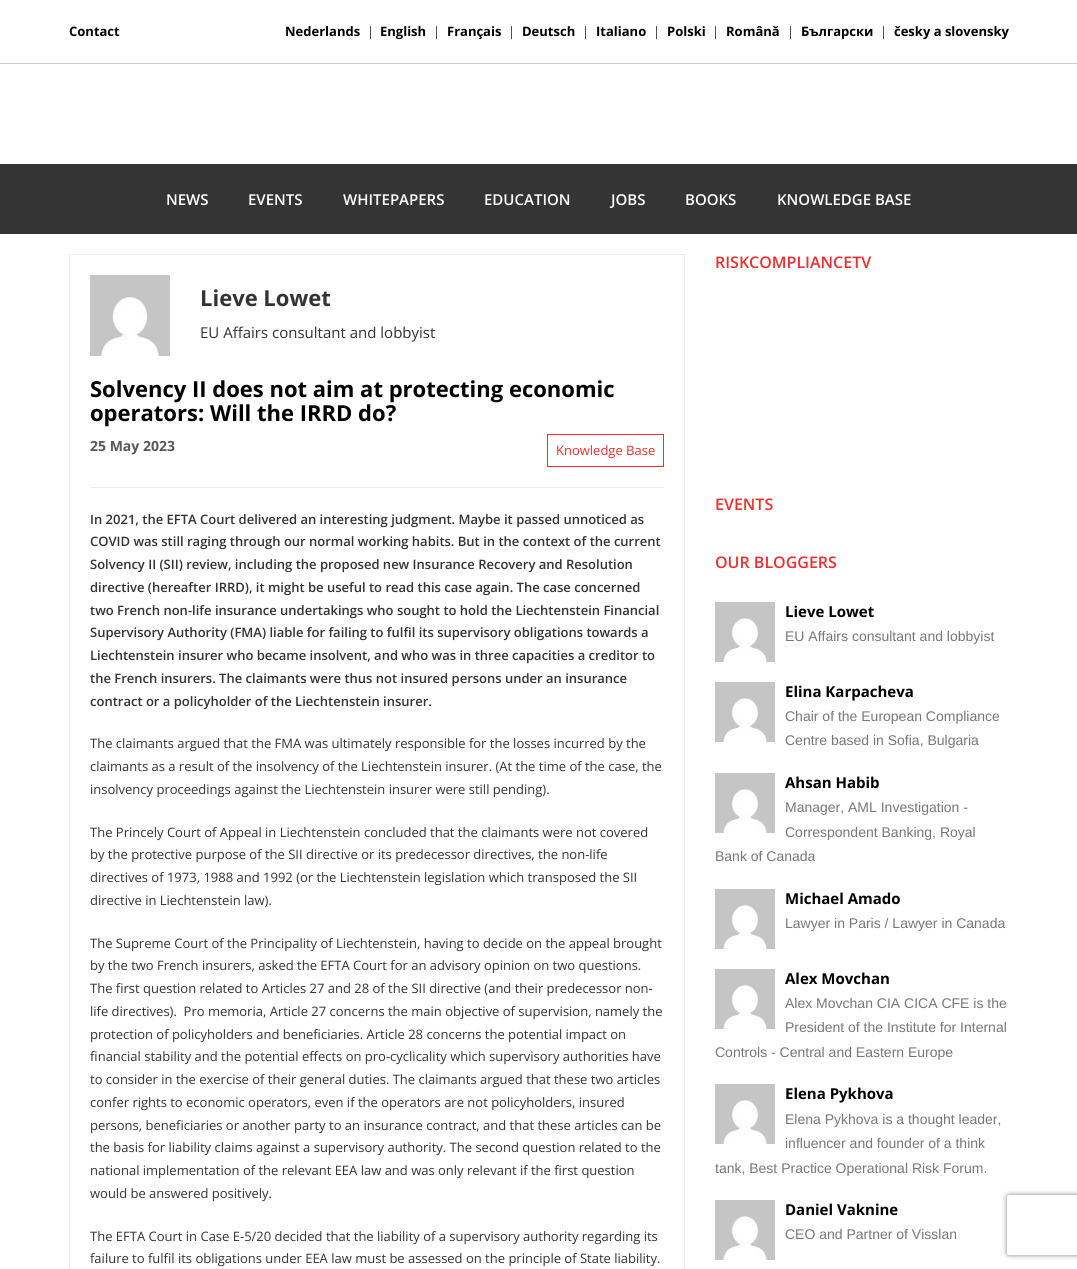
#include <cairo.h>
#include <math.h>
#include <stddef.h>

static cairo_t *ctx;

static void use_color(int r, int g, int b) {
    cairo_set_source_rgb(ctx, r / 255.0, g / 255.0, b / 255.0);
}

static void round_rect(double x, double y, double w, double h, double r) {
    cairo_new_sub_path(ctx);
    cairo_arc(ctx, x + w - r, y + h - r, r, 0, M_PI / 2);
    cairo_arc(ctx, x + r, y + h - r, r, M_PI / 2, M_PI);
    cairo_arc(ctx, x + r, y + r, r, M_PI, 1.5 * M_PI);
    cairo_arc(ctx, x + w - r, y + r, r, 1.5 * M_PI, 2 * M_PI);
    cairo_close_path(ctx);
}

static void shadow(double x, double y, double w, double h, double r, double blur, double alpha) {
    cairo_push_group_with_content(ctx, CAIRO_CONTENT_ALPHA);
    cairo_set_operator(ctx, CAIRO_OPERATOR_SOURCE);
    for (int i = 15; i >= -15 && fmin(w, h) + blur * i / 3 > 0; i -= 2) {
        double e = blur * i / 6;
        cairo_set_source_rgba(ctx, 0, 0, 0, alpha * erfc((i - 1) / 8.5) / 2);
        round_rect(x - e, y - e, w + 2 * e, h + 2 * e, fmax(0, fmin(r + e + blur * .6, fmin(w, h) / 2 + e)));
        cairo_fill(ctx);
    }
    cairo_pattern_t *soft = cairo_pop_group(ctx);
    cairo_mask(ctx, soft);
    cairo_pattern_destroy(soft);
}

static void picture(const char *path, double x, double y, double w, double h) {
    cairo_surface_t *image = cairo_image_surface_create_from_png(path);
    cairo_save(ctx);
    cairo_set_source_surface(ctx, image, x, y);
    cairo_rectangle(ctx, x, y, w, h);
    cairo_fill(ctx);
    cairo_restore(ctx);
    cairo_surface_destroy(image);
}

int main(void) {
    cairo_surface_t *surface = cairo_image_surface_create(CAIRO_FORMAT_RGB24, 1077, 1269);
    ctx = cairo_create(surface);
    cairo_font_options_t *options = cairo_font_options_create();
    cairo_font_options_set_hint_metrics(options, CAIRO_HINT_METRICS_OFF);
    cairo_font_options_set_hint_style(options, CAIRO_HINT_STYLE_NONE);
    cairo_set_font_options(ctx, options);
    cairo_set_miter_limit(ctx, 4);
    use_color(255, 255, 255);
    cairo_paint(ctx);
    use_color(204, 204, 204);
    cairo_rectangle(ctx, 0, 63, 1077, 1);
    cairo_fill(ctx);
    cairo_select_font_face(ctx, "Open Sans", CAIRO_FONT_SLANT_NORMAL, CAIRO_FONT_WEIGHT_BOLD);
    cairo_set_font_size(ctx, 13);
    use_color(0, 0, 0);
    cairo_move_to(ctx, 69, 36);
    cairo_show_text(ctx, "Contact");
    cairo_move_to(ctx, 285, 36);
    cairo_show_text(ctx, "Nederlands");
    cairo_select_font_face(ctx, "Open Sans", CAIRO_FONT_SLANT_NORMAL, CAIRO_FONT_WEIGHT_NORMAL);
    use_color(51, 51, 51);
    cairo_move_to(ctx, 367, 36);
    cairo_show_text(ctx, "|");
    cairo_select_font_face(ctx, "Open Sans", CAIRO_FONT_SLANT_NORMAL, CAIRO_FONT_WEIGHT_BOLD);
    use_color(0, 0, 0);
    cairo_move_to(ctx, 380, 36);
    cairo_show_text(ctx, "English");
    cairo_select_font_face(ctx, "Open Sans", CAIRO_FONT_SLANT_NORMAL, CAIRO_FONT_WEIGHT_NORMAL);
    use_color(51, 51, 51);
    cairo_move_to(ctx, 433, 36);
    cairo_show_text(ctx, "|");
    cairo_select_font_face(ctx, "Open Sans", CAIRO_FONT_SLANT_NORMAL, CAIRO_FONT_WEIGHT_BOLD);
    use_color(0, 0, 0);
    cairo_move_to(ctx, 447, 36);
    cairo_show_text(ctx, "Français");
    cairo_select_font_face(ctx, "Open Sans", CAIRO_FONT_SLANT_NORMAL, CAIRO_FONT_WEIGHT_NORMAL);
    use_color(51, 51, 51);
    cairo_move_to(ctx, 508, 36);
    cairo_show_text(ctx, "|");
    cairo_select_font_face(ctx, "Open Sans", CAIRO_FONT_SLANT_NORMAL, CAIRO_FONT_WEIGHT_BOLD);
    use_color(0, 0, 0);
    cairo_move_to(ctx, 522, 36);
    cairo_show_text(ctx, "Deutsch");
    cairo_select_font_face(ctx, "Open Sans", CAIRO_FONT_SLANT_NORMAL, CAIRO_FONT_WEIGHT_NORMAL);
    use_color(51, 51, 51);
    cairo_move_to(ctx, 582, 36);
    cairo_show_text(ctx, "|");
    cairo_select_font_face(ctx, "Open Sans", CAIRO_FONT_SLANT_NORMAL, CAIRO_FONT_WEIGHT_BOLD);
    use_color(0, 0, 0);
    cairo_move_to(ctx, 596, 36);
    cairo_show_text(ctx, "Italiano");
    cairo_select_font_face(ctx, "Open Sans", CAIRO_FONT_SLANT_NORMAL, CAIRO_FONT_WEIGHT_NORMAL);
    use_color(51, 51, 51);
    cairo_move_to(ctx, 653, 36);
    cairo_show_text(ctx, "|");
    cairo_select_font_face(ctx, "Open Sans", CAIRO_FONT_SLANT_NORMAL, CAIRO_FONT_WEIGHT_BOLD);
    use_color(0, 0, 0);
    cairo_move_to(ctx, 667, 36);
    cairo_show_text(ctx, "Polski");
    cairo_select_font_face(ctx, "Open Sans", CAIRO_FONT_SLANT_NORMAL, CAIRO_FONT_WEIGHT_NORMAL);
    use_color(51, 51, 51);
    cairo_move_to(ctx, 712, 36);
    cairo_show_text(ctx, "|");
    cairo_select_font_face(ctx, "Open Sans", CAIRO_FONT_SLANT_NORMAL, CAIRO_FONT_WEIGHT_BOLD);
    use_color(0, 0, 0);
    cairo_move_to(ctx, 726, 36);
    cairo_show_text(ctx, "Română");
    cairo_select_font_face(ctx, "Open Sans", CAIRO_FONT_SLANT_NORMAL, CAIRO_FONT_WEIGHT_NORMAL);
    use_color(51, 51, 51);
    cairo_move_to(ctx, 787, 36);
    cairo_show_text(ctx, "|");
    cairo_select_font_face(ctx, "Open Sans", CAIRO_FONT_SLANT_NORMAL, CAIRO_FONT_WEIGHT_BOLD);
    use_color(0, 0, 0);
    cairo_move_to(ctx, 801, 36);
    cairo_show_text(ctx, "Български");
    cairo_select_font_face(ctx, "Open Sans", CAIRO_FONT_SLANT_NORMAL, CAIRO_FONT_WEIGHT_NORMAL);
    use_color(51, 51, 51);
    cairo_move_to(ctx, 880, 36);
    cairo_show_text(ctx, "|");
    cairo_select_font_face(ctx, "Open Sans", CAIRO_FONT_SLANT_NORMAL, CAIRO_FONT_WEIGHT_BOLD);
    use_color(0, 0, 0);
    cairo_move_to(ctx, 894, 36);
    cairo_show_text(ctx, "česky a slovensky");
    use_color(51, 52, 51);
    cairo_rectangle(ctx, 0, 164, 1077, 70);
    cairo_fill(ctx);
    cairo_select_font_face(ctx, "Open Sans SemiBold", CAIRO_FONT_SLANT_NORMAL, CAIRO_FONT_WEIGHT_NORMAL);
    cairo_set_font_size(ctx, 15);
    use_color(255, 255, 255);
    cairo_move_to(ctx, 166, 205);
    cairo_show_text(ctx, "NEWS");
    cairo_move_to(ctx, 248, 205);
    cairo_show_text(ctx, "EVENTS");
    cairo_move_to(ctx, 343, 205);
    cairo_show_text(ctx, "WHITEPAPERS");
    cairo_move_to(ctx, 484, 205);
    cairo_show_text(ctx, "EDUCATION");
    cairo_move_to(ctx, 611, 205);
    cairo_show_text(ctx, "JOBS");
    cairo_move_to(ctx, 685, 205);
    cairo_show_text(ctx, "BOOKS");
    cairo_move_to(ctx, 777, 205);
    cairo_show_text(ctx, "KNOWLEDGE BASE");
    cairo_rectangle(ctx, 69.5, 254.5, 615, 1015);
    use_color(238, 238, 238);
    cairo_set_line_width(ctx, 1);
    cairo_stroke(ctx);
    picture("img1.png", 90, 275, 80, 81);
    cairo_select_font_face(ctx, "Open Sans", CAIRO_FONT_SLANT_NORMAL, CAIRO_FONT_WEIGHT_BOLD);
    cairo_set_font_size(ctx, 22);
    use_color(51, 51, 51);
    cairo_move_to(ctx, 200, 306);
    cairo_show_text(ctx, "Lieve Lowet");
    cairo_select_font_face(ctx, "Open Sans", CAIRO_FONT_SLANT_NORMAL, CAIRO_FONT_WEIGHT_NORMAL);
    cairo_set_font_size(ctx, 15);
    cairo_move_to(ctx, 200, 338);
    cairo_show_text(ctx, "EU Affairs consultant and lobbyist");
    cairo_select_font_face(ctx, "Open Sans", CAIRO_FONT_SLANT_NORMAL, CAIRO_FONT_WEIGHT_BOLD);
    cairo_set_font_size(ctx, 22);
    use_color(0, 0, 0);
    cairo_move_to(ctx, 90, 397);
    cairo_show_text(ctx, "Solvency II does not aim at protecting economic");
    cairo_move_to(ctx, 90, 421);
    cairo_show_text(ctx, "operators: Will the IRRD do?");
    cairo_set_font_size(ctx, 14);
    use_color(88, 88, 88);
    cairo_move_to(ctx, 90, 451);
    cairo_show_text(ctx, "25 May 2023");
    cairo_rectangle(ctx, 547.5, 434.5, 116, 32);
    use_color(237, 48, 46);
    cairo_stroke(ctx);
    cairo_select_font_face(ctx, "Open Sans", CAIRO_FONT_SLANT_NORMAL, CAIRO_FONT_WEIGHT_NORMAL);
    cairo_set_font_size(ctx, 13);
    cairo_move_to(ctx, 556, 455);
    cairo_show_text(ctx, "Knowledge Base");
    use_color(238, 238, 238);
    cairo_rectangle(ctx, 90, 487, 574, 1);
    cairo_fill(ctx);
    cairo_select_font_face(ctx, "Open Sans SemiBold", CAIRO_FONT_SLANT_NORMAL, CAIRO_FONT_WEIGHT_NORMAL);
    use_color(51, 51, 51);
    cairo_move_to(ctx, 90, 524);
    cairo_show_text(ctx, "In 2021, the EFTA Court delivered an interesting judgment. Maybe it passed unnoticed as");
    cairo_move_to(ctx, 90, 546);
    cairo_show_text(ctx, "COVID was still raging through our normal working habits. But in the context of the current");
    cairo_move_to(ctx, 90, 569);
    cairo_show_text(ctx, "Solvency II (SII) review, including the proposed new Insurance Recovery and Resolution");
    cairo_move_to(ctx, 90, 592);
    cairo_show_text(ctx, "directive (hereafter IRRD), it might be useful to read this case again. The case concerned");
    cairo_move_to(ctx, 90, 615);
    cairo_show_text(ctx, "two French non-life insurance undertakings who sought to hold the Liechtenstein Financial");
    cairo_move_to(ctx, 90, 637);
    cairo_show_text(ctx, "Supervisory Authority (FMA) liable for failing to fulfil its supervisory obligations towards a");
    cairo_move_to(ctx, 90, 660);
    cairo_show_text(ctx, "Liechtenstein insurer who became insolvent, and who was in three capacities a creditor to");
    cairo_move_to(ctx, 90, 683);
    cairo_show_text(ctx, "the French insurers. The claimants were thus not insured persons under an insurance");
    cairo_move_to(ctx, 90, 706);
    cairo_show_text(ctx, "contract or a policyholder of the Liechtenstein insurer.");
    cairo_select_font_face(ctx, "Open Sans", CAIRO_FONT_SLANT_NORMAL, CAIRO_FONT_WEIGHT_NORMAL);
    cairo_move_to(ctx, 90, 748);
    cairo_show_text(ctx, "The claimants argued that the FMA was ultimately responsible for the losses incurred by the");
    cairo_move_to(ctx, 90, 771);
    cairo_show_text(ctx, "claimants as a result of the insolvency of the Liechtenstein insurer. (At the time of the case, the");
    cairo_move_to(ctx, 90, 794);
    cairo_show_text(ctx, "insolvency proceedings against the Liechtenstein insurer were still pending).");
    cairo_move_to(ctx, 90, 837);
    cairo_show_text(ctx, "The Princely Court of Appeal in Liechtenstein concluded that the claimants were not covered");
    cairo_move_to(ctx, 90, 859);
    cairo_show_text(ctx, "by the protective purpose of the SII directive or its predecessor directives, the non-life");
    cairo_move_to(ctx, 90, 882);
    cairo_show_text(ctx, "directives of 1973, 1988 and 1992 (or the Liechtenstein legislation which transposed the SII");
    cairo_move_to(ctx, 90, 905);
    cairo_show_text(ctx, "directive in Liechtenstein law).");
    cairo_move_to(ctx, 90, 948);
    cairo_show_text(ctx, "The Supreme Court of the Principality of Liechtenstein, having to decide on the appeal brought");
    cairo_move_to(ctx, 90, 970);
    cairo_show_text(ctx, "by the two French insurers, asked the EFTA Court for an advisory opinion on two questions.");
    cairo_move_to(ctx, 90, 993);
    cairo_show_text(ctx, "The first question related to Articles 27 and 28 of the SII directive (and their predecessor non-");
    cairo_move_to(ctx, 90, 1016);
    cairo_show_text(ctx, "life directives).  Pro memoria, Article 27 concerns the main objective of supervision, namely the");
    cairo_move_to(ctx, 90, 1039);
    cairo_show_text(ctx, "protection of policyholders and beneficiaries. Article 28 concerns the potential impact on");
    cairo_move_to(ctx, 90, 1061);
    cairo_show_text(ctx, "financial stability and the potential effects on pro-cyclicality which supervisory authorities have");
    cairo_move_to(ctx, 90, 1084);
    cairo_show_text(ctx, "to consider in the exercise of their general duties. The claimants argued that these two articles");
    cairo_move_to(ctx, 90, 1107);
    cairo_show_text(ctx, "confer rights to economic operators, even if the operators are not policyholders, insured");
    cairo_move_to(ctx, 90, 1130);
    cairo_show_text(ctx, "persons, beneficiaries or another party to an insurance contract, and that these articles can be");
    cairo_move_to(ctx, 90, 1152);
    cairo_show_text(ctx, "the basis for liability claims against a supervisory authority. The second question related to the");
    cairo_move_to(ctx, 90, 1175);
    cairo_show_text(ctx, "national implementation of the relevant EEA law and was only relevant if the first question");
    cairo_move_to(ctx, 90, 1198);
    cairo_show_text(ctx, "would be answered positively.");
    cairo_move_to(ctx, 90, 1241);
    cairo_show_text(ctx, "The EFTA Court in Case E-5/20 decided that the liability of a supervisory authority regarding its");
    cairo_move_to(ctx, 90, 1263);
    cairo_show_text(ctx, "failure to fulfil its obligations under EEA law must be assessed on the principle of State liability.");
    cairo_select_font_face(ctx, "Open Sans SemiBold", CAIRO_FONT_SLANT_NORMAL, CAIRO_FONT_WEIGHT_NORMAL);
    cairo_set_font_size(ctx, 16);
    use_color(237, 48, 46);
    cairo_move_to(ctx, 715, 268);
    cairo_show_text(ctx, "RISKCOMPLIANCETV");
    cairo_move_to(ctx, 715, 510);
    cairo_show_text(ctx, "EVENTS");
    cairo_move_to(ctx, 715, 568);
    cairo_show_text(ctx, "OUR BLOGGERS");
    picture("img2.png", 715, 602, 60, 60);
    cairo_select_font_face(ctx, "Open Sans", CAIRO_FONT_SLANT_NORMAL, CAIRO_FONT_WEIGHT_BOLD);
    cairo_set_font_size(ctx, 15);
    use_color(0, 0, 0);
    cairo_move_to(ctx, 785, 617);
    cairo_show_text(ctx, "Lieve Lowet");
    cairo_select_font_face(ctx, "Liberation Sans", CAIRO_FONT_SLANT_NORMAL, CAIRO_FONT_WEIGHT_NORMAL);
    cairo_set_font_size(ctx, 14);
    use_color(119, 119, 119);
    cairo_move_to(ctx, 785, 641);
    cairo_show_text(ctx, "EU Affairs consultant and lobbyist");
    picture("img2.png", 715, 682, 60, 60);
    cairo_select_font_face(ctx, "Open Sans", CAIRO_FONT_SLANT_NORMAL, CAIRO_FONT_WEIGHT_BOLD);
    cairo_set_font_size(ctx, 15);
    use_color(0, 0, 0);
    cairo_move_to(ctx, 785, 697);
    cairo_show_text(ctx, "Elina Karpacheva");
    cairo_select_font_face(ctx, "Liberation Sans", CAIRO_FONT_SLANT_NORMAL, CAIRO_FONT_WEIGHT_NORMAL);
    cairo_set_font_size(ctx, 14);
    use_color(119, 119, 119);
    cairo_move_to(ctx, 785, 721);
    cairo_show_text(ctx, "Chair of the European Compliance");
    cairo_move_to(ctx, 785, 745);
    cairo_show_text(ctx, "Centre based in Sofia, Bulgaria");
    picture("img2.png", 715, 773, 60, 60);
    cairo_select_font_face(ctx, "Open Sans", CAIRO_FONT_SLANT_NORMAL, CAIRO_FONT_WEIGHT_BOLD);
    cairo_set_font_size(ctx, 15);
    use_color(0, 0, 0);
    cairo_move_to(ctx, 785, 788);
    cairo_show_text(ctx, "Ahsan Habib");
    cairo_select_font_face(ctx, "Liberation Sans", CAIRO_FONT_SLANT_NORMAL, CAIRO_FONT_WEIGHT_NORMAL);
    cairo_set_font_size(ctx, 14);
    use_color(119, 119, 119);
    cairo_move_to(ctx, 785, 812);
    cairo_show_text(ctx, "Manager, AML Investigation -");
    cairo_move_to(ctx, 785, 837);
    cairo_show_text(ctx, "Correspondent Banking, Royal");
    cairo_move_to(ctx, 715, 861);
    cairo_show_text(ctx, "Bank of Canada");
    picture("img2.png", 715, 889, 60, 60);
    cairo_select_font_face(ctx, "Open Sans", CAIRO_FONT_SLANT_NORMAL, CAIRO_FONT_WEIGHT_BOLD);
    cairo_set_font_size(ctx, 15);
    use_color(0, 0, 0);
    cairo_move_to(ctx, 785, 904);
    cairo_show_text(ctx, "Michael Amado");
    cairo_select_font_face(ctx, "Liberation Sans", CAIRO_FONT_SLANT_NORMAL, CAIRO_FONT_WEIGHT_NORMAL);
    cairo_set_font_size(ctx, 14);
    use_color(119, 119, 119);
    cairo_move_to(ctx, 785, 928);
    cairo_show_text(ctx, "Lawyer in Paris / Lawyer in Canada");
    picture("img2.png", 715, 969, 60, 60);
    cairo_select_font_face(ctx, "Open Sans", CAIRO_FONT_SLANT_NORMAL, CAIRO_FONT_WEIGHT_BOLD);
    cairo_set_font_size(ctx, 15);
    use_color(0, 0, 0);
    cairo_move_to(ctx, 785, 984);
    cairo_show_text(ctx, "Alex Movchan");
    cairo_select_font_face(ctx, "Liberation Sans", CAIRO_FONT_SLANT_NORMAL, CAIRO_FONT_WEIGHT_NORMAL);
    cairo_set_font_size(ctx, 14);
    use_color(119, 119, 119);
    cairo_move_to(ctx, 785, 1008);
    cairo_show_text(ctx, "Alex Movchan CIA CICA CFE is the");
    cairo_move_to(ctx, 785, 1032);
    cairo_show_text(ctx, "President of the Institute for Internal");
    cairo_move_to(ctx, 715, 1057);
    cairo_show_text(ctx, "Controls - Central and Eastern Europe");
    picture("img2.png", 715, 1084, 60, 60);
    cairo_select_font_face(ctx, "Open Sans", CAIRO_FONT_SLANT_NORMAL, CAIRO_FONT_WEIGHT_BOLD);
    cairo_set_font_size(ctx, 15);
    use_color(0, 0, 0);
    cairo_move_to(ctx, 785, 1099);
    cairo_show_text(ctx, "Elena Pykhova");
    cairo_select_font_face(ctx, "Liberation Sans", CAIRO_FONT_SLANT_NORMAL, CAIRO_FONT_WEIGHT_NORMAL);
    cairo_set_font_size(ctx, 14);
    use_color(119, 119, 119);
    cairo_move_to(ctx, 785, 1124);
    cairo_show_text(ctx, "Elena Pykhova is a thought leader,");
    cairo_move_to(ctx, 785, 1148);
    cairo_show_text(ctx, "influencer and founder of a think");
    cairo_move_to(ctx, 715, 1173);
    cairo_show_text(ctx, "tank, Best Practice Operational Risk Forum.");
    picture("img2.png", 715, 1200, 60, 60);
    cairo_select_font_face(ctx, "Open Sans", CAIRO_FONT_SLANT_NORMAL, CAIRO_FONT_WEIGHT_BOLD);
    cairo_set_font_size(ctx, 15);
    use_color(0, 0, 0);
    cairo_move_to(ctx, 785, 1215);
    cairo_show_text(ctx, "Daniel Vaknine");
    cairo_select_font_face(ctx, "Liberation Sans", CAIRO_FONT_SLANT_NORMAL, CAIRO_FONT_WEIGHT_NORMAL);
    cairo_set_font_size(ctx, 14);
    use_color(119, 119, 119);
    cairo_move_to(ctx, 785, 1239);
    cairo_show_text(ctx, "CEO and Partner of Visslan");
    cairo_save(ctx);
    cairo_set_fill_rule(ctx, CAIRO_FILL_RULE_EVEN_ODD);
    cairo_new_path(ctx);
    cairo_move_to(ctx, 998, 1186);
    cairo_line_to(ctx, 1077, 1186);
    cairo_line_to(ctx, 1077, 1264);
    cairo_line_to(ctx, 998, 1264);
    cairo_close_path(ctx);
    cairo_move_to(ctx, 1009, 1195);
    cairo_line_to(ctx, 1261, 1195);
    cairo_curve_to(ctx, 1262, 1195, 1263, 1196, 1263, 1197);
    cairo_line_to(ctx, 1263, 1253);
    cairo_curve_to(ctx, 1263, 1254, 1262, 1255, 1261, 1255);
    cairo_line_to(ctx, 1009, 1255);
    cairo_curve_to(ctx, 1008, 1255, 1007, 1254, 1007, 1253);
    cairo_line_to(ctx, 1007, 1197);
    cairo_curve_to(ctx, 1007, 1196, 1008, 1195, 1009, 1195);
    cairo_close_path(ctx);
    cairo_clip(ctx);
    use_color(128, 128, 128);
    shadow(1007, 1195, 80, 60, 2, 2.5, 1);
    cairo_restore(ctx);
    cairo_surface_write_to_png(surface, "result.png");
    cairo_font_options_destroy(options);
    cairo_destroy(ctx);
    cairo_surface_destroy(surface);
    return 0;
}
